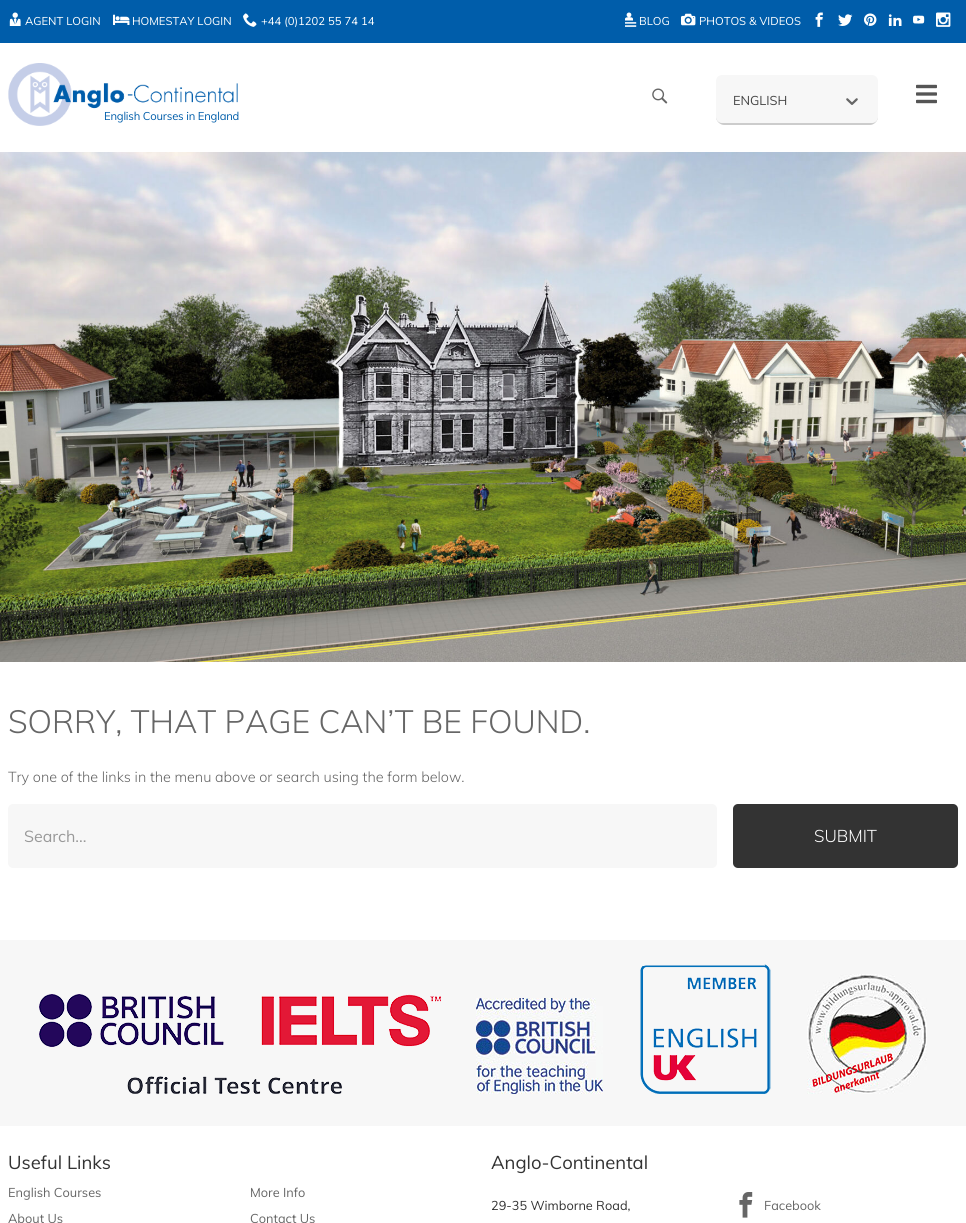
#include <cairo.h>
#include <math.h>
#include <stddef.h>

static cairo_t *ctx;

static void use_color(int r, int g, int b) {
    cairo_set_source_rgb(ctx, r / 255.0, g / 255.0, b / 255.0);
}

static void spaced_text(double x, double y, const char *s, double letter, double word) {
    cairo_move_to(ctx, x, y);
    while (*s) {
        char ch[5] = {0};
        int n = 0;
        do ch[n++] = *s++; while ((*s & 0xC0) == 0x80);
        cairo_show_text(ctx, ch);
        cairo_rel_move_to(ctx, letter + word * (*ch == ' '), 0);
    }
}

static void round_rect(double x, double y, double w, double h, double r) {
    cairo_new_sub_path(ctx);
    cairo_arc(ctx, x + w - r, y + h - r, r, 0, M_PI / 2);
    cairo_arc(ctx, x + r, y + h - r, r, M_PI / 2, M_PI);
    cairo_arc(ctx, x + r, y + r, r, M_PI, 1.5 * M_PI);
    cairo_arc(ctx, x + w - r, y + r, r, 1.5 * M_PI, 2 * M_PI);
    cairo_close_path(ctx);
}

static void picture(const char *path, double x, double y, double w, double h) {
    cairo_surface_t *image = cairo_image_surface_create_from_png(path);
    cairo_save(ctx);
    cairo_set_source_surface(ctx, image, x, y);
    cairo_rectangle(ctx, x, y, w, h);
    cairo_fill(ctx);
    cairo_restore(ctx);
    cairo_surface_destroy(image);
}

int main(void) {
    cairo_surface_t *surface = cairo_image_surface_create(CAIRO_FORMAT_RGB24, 966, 1223);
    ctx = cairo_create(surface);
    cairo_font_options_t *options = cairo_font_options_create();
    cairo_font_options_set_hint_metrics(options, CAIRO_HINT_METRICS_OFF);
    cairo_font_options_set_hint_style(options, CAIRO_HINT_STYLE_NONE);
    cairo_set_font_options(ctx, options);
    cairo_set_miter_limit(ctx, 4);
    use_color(255, 255, 255);
    cairo_paint(ctx);
    use_color(0, 93, 170);
    cairo_rectangle(ctx, 0, 0, 966, 43);
    cairo_fill(ctx);
    picture("img1.png", 9, 12, 12, 14);
    cairo_select_font_face(ctx, "Muli", CAIRO_FONT_SLANT_NORMAL, CAIRO_FONT_WEIGHT_NORMAL);
    cairo_set_font_size(ctx, 11.25);
    use_color(255, 255, 255);
    cairo_move_to(ctx, 25, 25);
    cairo_show_text(ctx, "AGENT LOGIN");
    picture("img2.png", 113, 14, 17, 11);
    cairo_move_to(ctx, 132, 25);
    cairo_show_text(ctx, "HOMESTAY LOGIN");
    picture("img3.png", 243, 13, 14, 14);
    cairo_move_to(ctx, 261, 25);
    cairo_show_text(ctx, "+44 (0)1202 55 74 14");
    picture("img4.png", 625, 12, 12, 15);
    cairo_move_to(ctx, 639, 25);
    cairo_show_text(ctx, "BLOG");
    picture("img5.png", 681, 13, 15, 13);
    cairo_move_to(ctx, 699, 25);
    cairo_show_text(ctx, "PHOTOS & VIDEOS");
    picture("img6.png", 815, 12, 8, 15);
    picture("img7.png", 838, 14, 15, 12);
    picture("img8.png", 864, 13, 13, 13);
    picture("img9.png", 888, 14, 14, 12);
    picture("img10.png", 913, 15, 12, 9);
    picture("img11.png", 936, 12, 15, 15);
    picture("img12.png", 652, 88, 16, 16);
    use_color(204, 204, 204);
    cairo_new_path(ctx);
    cairo_move_to(ctx, 716, 115);
    cairo_line_to(ctx, 716, 117);
    cairo_curve_to(ctx, 716, 121, 720, 125, 724, 125);
    cairo_line_to(ctx, 870, 125);
    cairo_curve_to(ctx, 874, 125, 878, 121, 878, 117);
    cairo_line_to(ctx, 878, 115);
    cairo_curve_to(ctx, 878, 119, 874, 123, 870, 123);
    cairo_line_to(ctx, 724, 123);
    cairo_curve_to(ctx, 720, 123, 716, 119, 716, 115);
    cairo_close_path(ctx);
    cairo_fill(ctx);
    use_color(247, 247, 247);
    round_rect(716, 75, 162, 48, 6);
    cairo_fill(ctx);
    cairo_set_font_size(ctx, 12.75);
    use_color(68, 68, 68);
    cairo_move_to(ctx, 733, 105);
    cairo_show_text(ctx, "ENGLISH");
    picture("img13.png", 846, 98, 12, 7);
    picture("img14.png", 916, 84, 21, 20);
    picture("img15.png", 8, 63, 230, 63);
    cairo_set_font_size(ctx, 11.25);
    use_color(0, 93, 170);
    spaced_text(104, 120, "English Courses in England", -0.2, 0);
    picture("img16.png", 0, 152, 966, 510);
    cairo_select_font_face(ctx, "Muli Light", CAIRO_FONT_SLANT_NORMAL, CAIRO_FONT_WEIGHT_NORMAL);
    cairo_set_font_size(ctx, 32);
    use_color(102, 102, 102);
    cairo_move_to(ctx, 8, 733);
    cairo_show_text(ctx, "SORRY, THAT PAGE CAN’T BE FOUND.");
    cairo_set_font_size(ctx, 14.4);
    cairo_move_to(ctx, 8, 782);
    cairo_show_text(ctx, "Try one of the links in the menu above or search using the form below.");
    use_color(247, 247, 247);
    round_rect(8, 804, 709, 64, 5);
    cairo_fill(ctx);
    cairo_select_font_face(ctx, "Muli", CAIRO_FONT_SLANT_NORMAL, CAIRO_FONT_WEIGHT_NORMAL);
    cairo_set_font_size(ctx, 16);
    use_color(153, 153, 153);
    cairo_move_to(ctx, 24, 842);
    cairo_show_text(ctx, "Search...");
    use_color(51, 51, 51);
    round_rect(733, 804, 225, 64, 5);
    cairo_fill(ctx);
    cairo_select_font_face(ctx, "Muli Light", CAIRO_FONT_SLANT_NORMAL, CAIRO_FONT_WEIGHT_NORMAL);
    cairo_set_font_size(ctx, 17);
    use_color(255, 255, 255);
    cairo_move_to(ctx, 814, 842);
    cairo_show_text(ctx, "SUBMIT");
    use_color(247, 247, 247);
    cairo_rectangle(ctx, 0, 940, 966, 186);
    cairo_fill(ctx);
    picture("img17.png", 39, 994, 402, 100);
    picture("img18.png", 476, 998, 127, 96);
    picture("img19.png", 640, 964, 131, 130);
    picture("img20.png", 807, 974, 120, 120);
    cairo_select_font_face(ctx, "Muli", CAIRO_FONT_SLANT_NORMAL, CAIRO_FONT_WEIGHT_NORMAL);
    cairo_set_font_size(ctx, 18.5);
    use_color(51, 51, 51);
    cairo_move_to(ctx, 8, 1169);
    cairo_show_text(ctx, "Useful Links");
    cairo_set_font_size(ctx, 12.75);
    use_color(102, 102, 102);
    cairo_move_to(ctx, 8, 1197);
    cairo_show_text(ctx, "English Courses");
    cairo_move_to(ctx, 8, 1223);
    cairo_show_text(ctx, "About Us");
    cairo_move_to(ctx, 250, 1197);
    cairo_show_text(ctx, "More Info");
    cairo_move_to(ctx, 250, 1223);
    cairo_show_text(ctx, "Contact Us");
    cairo_set_font_size(ctx, 18.5);
    use_color(51, 51, 51);
    cairo_move_to(ctx, 491, 1169);
    cairo_show_text(ctx, "Anglo-Continental");
    cairo_set_font_size(ctx, 12.75);
    cairo_move_to(ctx, 491, 1210);
    cairo_show_text(ctx, "29-35 Wimborne Road,");
    picture("img21.png", 739, 1192, 14, 26);
    use_color(102, 102, 102);
    cairo_move_to(ctx, 764, 1210);
    cairo_show_text(ctx, "Facebook");
    cairo_surface_write_to_png(surface, "result.png");
    cairo_font_options_destroy(options);
    cairo_destroy(ctx);
    cairo_surface_destroy(surface);
    return 0;
}
